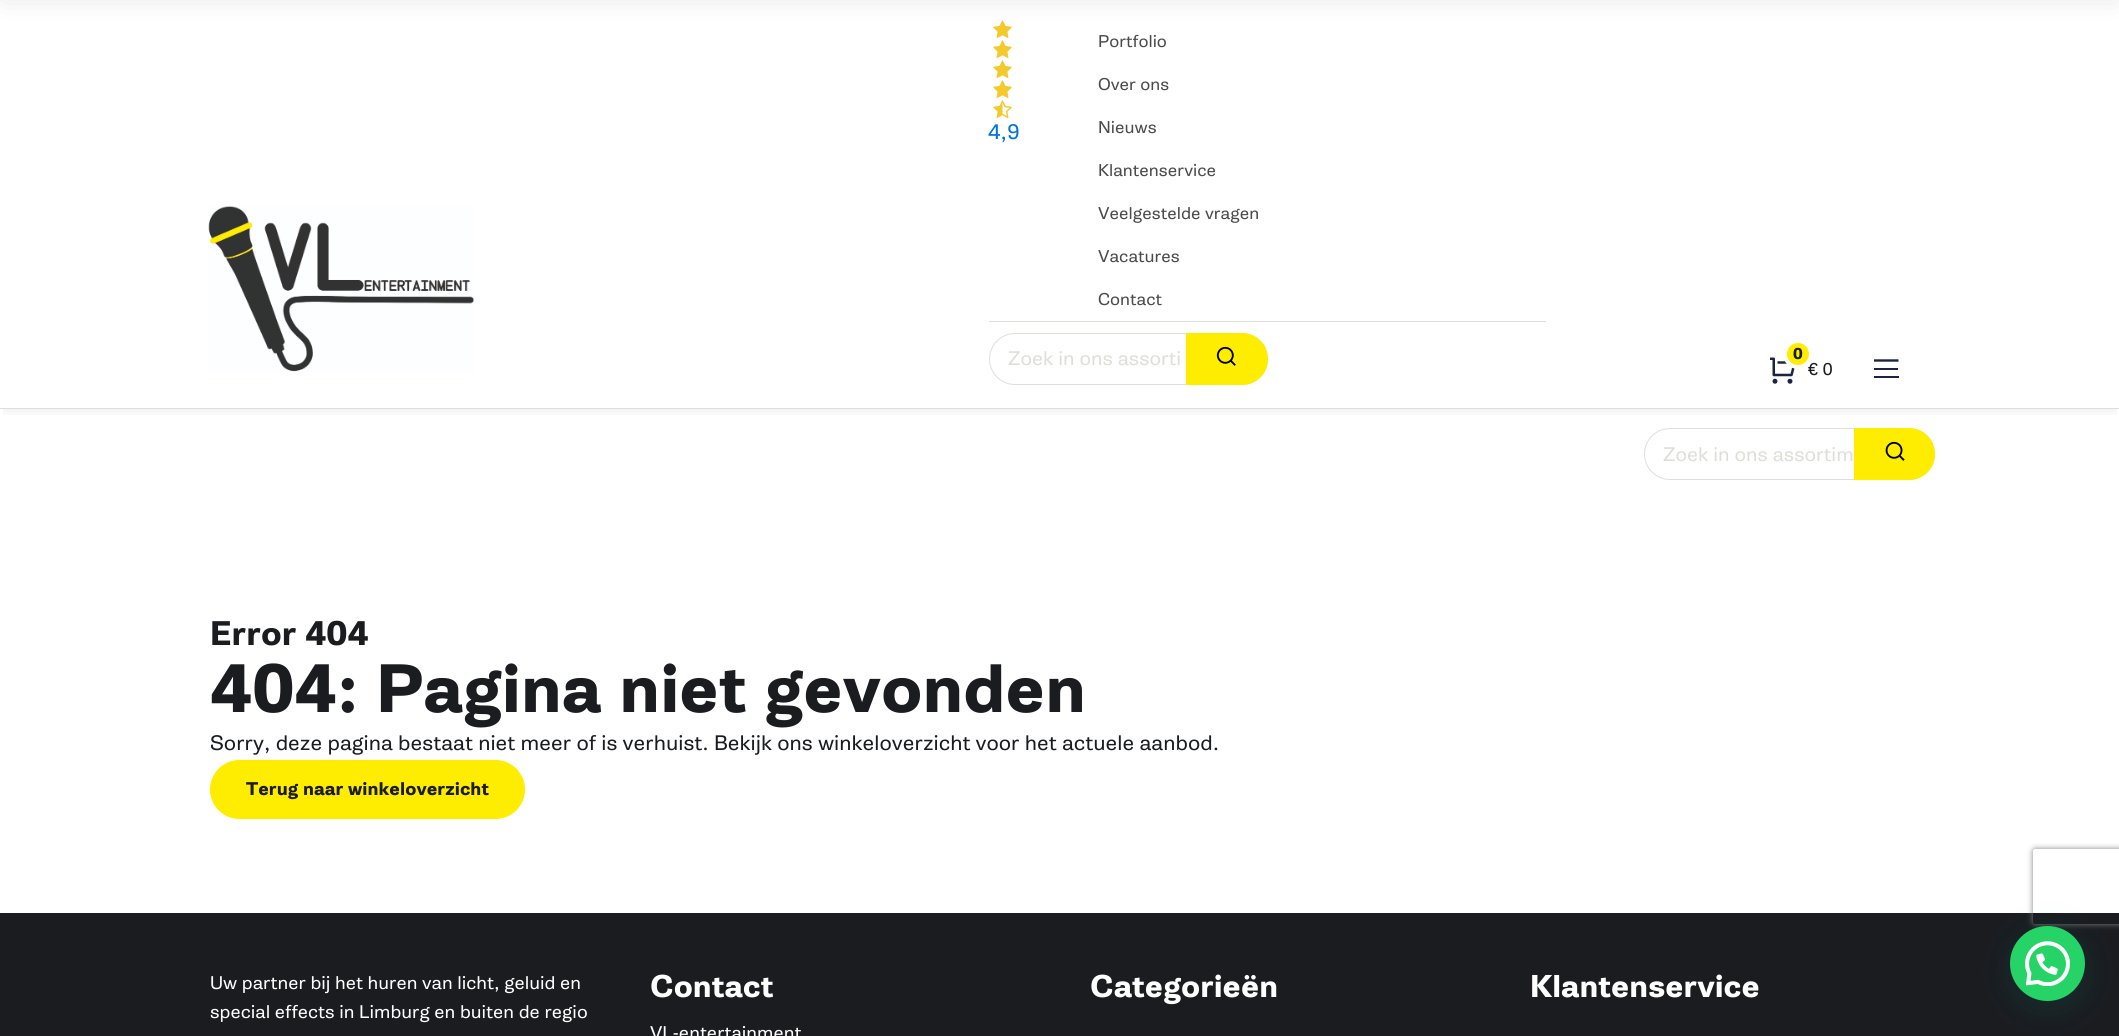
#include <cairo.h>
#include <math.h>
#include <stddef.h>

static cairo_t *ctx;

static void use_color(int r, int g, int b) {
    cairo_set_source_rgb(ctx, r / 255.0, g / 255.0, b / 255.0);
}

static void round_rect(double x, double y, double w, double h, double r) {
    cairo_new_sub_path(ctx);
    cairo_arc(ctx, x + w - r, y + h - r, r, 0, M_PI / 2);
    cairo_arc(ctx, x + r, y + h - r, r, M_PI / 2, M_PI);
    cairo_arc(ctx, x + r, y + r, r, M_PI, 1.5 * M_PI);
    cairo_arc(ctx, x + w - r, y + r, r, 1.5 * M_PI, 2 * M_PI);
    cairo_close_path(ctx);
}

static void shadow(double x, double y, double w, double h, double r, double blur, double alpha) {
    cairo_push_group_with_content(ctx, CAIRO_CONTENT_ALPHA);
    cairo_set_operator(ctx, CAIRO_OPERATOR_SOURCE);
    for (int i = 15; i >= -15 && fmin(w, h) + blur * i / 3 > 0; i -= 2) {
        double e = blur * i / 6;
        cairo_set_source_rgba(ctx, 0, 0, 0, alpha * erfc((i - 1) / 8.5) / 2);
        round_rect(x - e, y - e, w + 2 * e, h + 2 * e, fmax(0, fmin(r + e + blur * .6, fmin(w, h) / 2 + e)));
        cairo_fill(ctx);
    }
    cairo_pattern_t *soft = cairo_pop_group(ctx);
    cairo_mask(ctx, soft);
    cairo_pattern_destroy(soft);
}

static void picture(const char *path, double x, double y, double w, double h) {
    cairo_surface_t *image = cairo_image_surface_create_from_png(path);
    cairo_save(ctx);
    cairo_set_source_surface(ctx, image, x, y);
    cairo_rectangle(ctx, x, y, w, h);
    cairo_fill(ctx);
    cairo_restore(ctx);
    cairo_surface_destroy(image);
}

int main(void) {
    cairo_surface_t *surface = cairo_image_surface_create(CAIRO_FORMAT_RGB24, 2119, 1036);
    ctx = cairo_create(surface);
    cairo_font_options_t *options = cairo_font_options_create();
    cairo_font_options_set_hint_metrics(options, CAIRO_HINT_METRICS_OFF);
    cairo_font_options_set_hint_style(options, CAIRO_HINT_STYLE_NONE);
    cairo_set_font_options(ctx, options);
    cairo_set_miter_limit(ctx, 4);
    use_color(255, 255, 255);
    cairo_paint(ctx);
    cairo_save(ctx);
    cairo_rectangle(ctx, 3, 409, 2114, 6);
    cairo_clip(ctx);
    use_color(0, 0, 0);
    shadow(4, 8, 2112, 401, 0, 8, 0.09);
    cairo_restore(ctx);
    picture("img2.png", 993, 20, 19, 18);
    use_color(0, 0, 0);
    shadow(4, -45, 2112, 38, 0, 15, 0.15);
    use_color(223, 223, 218);
    cairo_rectangle(ctx, 0, 408, 2119, 1);
    cairo_fill(ctx);
    picture("img1.png", 208, 206, 267, 166);
    cairo_rectangle(ctx, 989, 321, 557, 1);
    cairo_fill(ctx);
    picture("img2.png", 993, 40, 19, 18);
    picture("img2.png", 993, 60, 19, 18);
    picture("img2.png", 993, 80, 19, 18);
    picture("img3.png", 993, 100, 19, 18);
    cairo_select_font_face(ctx, "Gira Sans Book", CAIRO_FONT_SLANT_NORMAL, CAIRO_FONT_WEIGHT_NORMAL);
    cairo_set_font_size(ctx, 20);
    use_color(0, 116, 219);
    cairo_move_to(ctx, 988, 139);
    cairo_show_text(ctx, "4,9");
    cairo_set_font_size(ctx, 16.25);
    use_color(74, 74, 73);
    cairo_move_to(ctx, 1098, 47);
    cairo_show_text(ctx, "Portfolio");
    cairo_move_to(ctx, 1098, 90);
    cairo_show_text(ctx, "Over ons");
    cairo_move_to(ctx, 1098, 133);
    cairo_show_text(ctx, "Nieuws");
    cairo_move_to(ctx, 1098, 176);
    cairo_show_text(ctx, "Klantenservice");
    cairo_move_to(ctx, 1098, 219);
    cairo_show_text(ctx, "Veelgestelde vragen");
    cairo_move_to(ctx, 1098, 262);
    cairo_show_text(ctx, "Vacatures");
    cairo_move_to(ctx, 1098, 305);
    cairo_show_text(ctx, "Contact");
    round_rect(989.5, 333.5, 278, 51, 25.5);
    use_color(223, 223, 218);
    cairo_set_line_width(ctx, 1);
    cairo_stroke(ctx);
    cairo_set_font_size(ctx, 18.75);
    cairo_move_to(ctx, 1008, 365);
    cairo_show_text(ctx, "Zoek in ons assorti");
    use_color(255, 237, 0);
    cairo_new_path(ctx);
    cairo_move_to(ctx, 1186, 333);
    cairo_line_to(ctx, 1242, 333);
    cairo_curve_to(ctx, 1256.5, 333, 1268, 344.5, 1268, 359);
    cairo_curve_to(ctx, 1268, 373.5, 1256.5, 385, 1242, 385);
    cairo_line_to(ctx, 1186, 385);
    cairo_close_path(ctx);
    cairo_fill(ctx);
    picture("img4.png", 1216, 346, 20, 20);
    picture("img5.png", 1770, 357, 25, 27);
    cairo_set_font_size(ctx, 16.25);
    use_color(26, 28, 32);
    cairo_move_to(ctx, 1808, 375);
    cairo_show_text(ctx, "€ 0");
    use_color(255, 237, 0);
    cairo_new_path(ctx);
    cairo_arc(ctx, 1798, 354, 13, 0, 2 * M_PI);
    cairo_fill_preserve(ctx);
    use_color(255, 255, 255);
    cairo_set_line_width(ctx, 4);
    cairo_stroke(ctx);
    cairo_select_font_face(ctx, "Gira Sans", CAIRO_FONT_SLANT_NORMAL, CAIRO_FONT_WEIGHT_BOLD);
    cairo_set_font_size(ctx, 15);
    use_color(26, 28, 32);
    cairo_move_to(ctx, 1793, 359);
    cairo_show_text(ctx, "0");
    cairo_new_path(ctx);
    cairo_move_to(ctx, 1874, 360.5);
    cairo_line_to(ctx, 1898.5, 360.5);
    use_color(30, 35, 68);
    cairo_set_line_width(ctx, 2.4);
    cairo_stroke(ctx);
    cairo_rectangle(ctx, 1874, 368, 24, 2);
    cairo_fill(ctx);
    cairo_rectangle(ctx, 1874, 376, 25, 2);
    cairo_fill(ctx);
    round_rect(1644.5, 428.5, 290, 51, 25.5);
    use_color(223, 223, 218);
    cairo_set_line_width(ctx, 1);
    cairo_stroke(ctx);
    cairo_select_font_face(ctx, "Gira Sans Book", CAIRO_FONT_SLANT_NORMAL, CAIRO_FONT_WEIGHT_NORMAL);
    cairo_set_font_size(ctx, 18.75);
    cairo_move_to(ctx, 1663, 461);
    cairo_show_text(ctx, "Zoek in ons assortim");
    use_color(255, 237, 0);
    cairo_new_path(ctx);
    cairo_move_to(ctx, 1854, 428);
    cairo_line_to(ctx, 1909, 428);
    cairo_curve_to(ctx, 1923.5, 428, 1935, 439.5, 1935, 454);
    cairo_curve_to(ctx, 1935, 468.5, 1923.5, 480, 1909, 480);
    cairo_line_to(ctx, 1854, 480);
    cairo_close_path(ctx);
    cairo_fill(ctx);
    picture("img6.png", 1885, 441, 20, 20);
    cairo_select_font_face(ctx, "Gira Sans", CAIRO_FONT_SLANT_NORMAL, CAIRO_FONT_WEIGHT_BOLD);
    cairo_set_font_size(ctx, 32.5);
    use_color(26, 28, 32);
    cairo_move_to(ctx, 210, 645);
    cairo_show_text(ctx, "Error 404");
    cairo_set_font_size(ctx, 65);
    cairo_move_to(ctx, 210, 712);
    cairo_show_text(ctx, "404: Pagina niet gevonden");
    cairo_select_font_face(ctx, "Gira Sans Book", CAIRO_FONT_SLANT_NORMAL, CAIRO_FONT_WEIGHT_NORMAL);
    cairo_set_font_size(ctx, 20);
    cairo_move_to(ctx, 210, 750);
    cairo_show_text(ctx, "Sorry, deze pagina bestaat niet meer of is verhuist. Bekijk ons winkeloverzicht voor het actuele aanbod.");
    use_color(255, 237, 0);
    round_rect(210.5, 760.5, 314, 58, 29);
    cairo_fill_preserve(ctx);
    cairo_stroke(ctx);
    cairo_select_font_face(ctx, "Gira Sans", CAIRO_FONT_SLANT_NORMAL, CAIRO_FONT_WEIGHT_BOLD);
    cairo_set_font_size(ctx, 17.5);
    use_color(26, 28, 32);
    cairo_move_to(ctx, 246, 795);
    cairo_show_text(ctx, "Terug naar winkeloverzicht");
    cairo_rectangle(ctx, 0, 913, 2119, 123);
    cairo_fill(ctx);
    cairo_save(ctx);
    cairo_set_fill_rule(ctx, CAIRO_FILL_RULE_EVEN_ODD);
    cairo_new_path(ctx);
    cairo_move_to(ctx, 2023, 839);
    cairo_line_to(ctx, 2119, 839);
    cairo_line_to(ctx, 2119, 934);
    cairo_line_to(ctx, 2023, 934);
    cairo_close_path(ctx);
    cairo_move_to(ctx, 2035.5, 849);
    cairo_line_to(ctx, 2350.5, 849);
    cairo_curve_to(ctx, 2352, 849, 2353, 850, 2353, 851.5);
    cairo_line_to(ctx, 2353, 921.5);
    cairo_curve_to(ctx, 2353, 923, 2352, 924, 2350.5, 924);
    cairo_line_to(ctx, 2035.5, 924);
    cairo_curve_to(ctx, 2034, 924, 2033, 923, 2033, 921.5);
    cairo_line_to(ctx, 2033, 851.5);
    cairo_curve_to(ctx, 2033, 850, 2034, 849, 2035.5, 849);
    cairo_close_path(ctx);
    cairo_clip(ctx);
    use_color(128, 128, 128);
    shadow(2033, 849, 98, 75, 2.5, 3, 1);
    cairo_restore(ctx);
    cairo_select_font_face(ctx, "Gira Sans Book", CAIRO_FONT_SLANT_NORMAL, CAIRO_FONT_WEIGHT_NORMAL);
    use_color(255, 255, 255);
    cairo_move_to(ctx, 210, 989);
    cairo_show_text(ctx, "Uw partner bij het huren van licht, geluid en");
    cairo_move_to(ctx, 210, 1018);
    cairo_show_text(ctx, "special effects in Limburg en buiten de regio");
    cairo_select_font_face(ctx, "Gira Sans", CAIRO_FONT_SLANT_NORMAL, CAIRO_FONT_WEIGHT_BOLD);
    cairo_set_font_size(ctx, 30);
    cairo_move_to(ctx, 650, 997);
    cairo_show_text(ctx, "Contact");
    cairo_select_font_face(ctx, "Gira Sans Book", CAIRO_FONT_SLANT_NORMAL, CAIRO_FONT_WEIGHT_NORMAL);
    cairo_set_font_size(ctx, 17.5);
    cairo_move_to(ctx, 650, 1039);
    cairo_show_text(ctx, "VL-entertainment");
    cairo_select_font_face(ctx, "Gira Sans", CAIRO_FONT_SLANT_NORMAL, CAIRO_FONT_WEIGHT_BOLD);
    cairo_set_font_size(ctx, 30);
    cairo_move_to(ctx, 1090, 997);
    cairo_show_text(ctx, "Categorieën");
    cairo_move_to(ctx, 1530, 997);
    cairo_show_text(ctx, "Klantenservice");
    use_color(7, 94, 84);
    shadow(2011, 934, 75, 75, 37.5, 15, 0.24);
    use_color(37, 211, 102);
    cairo_arc(ctx, 2047.5, 963.5, 37.5, 0, 2 * M_PI);
    cairo_fill(ctx);
    picture("img7.png", 2025, 941, 45, 45);
    cairo_surface_write_to_png(surface, "result.png");
    cairo_font_options_destroy(options);
    cairo_destroy(ctx);
    cairo_surface_destroy(surface);
    return 0;
}
